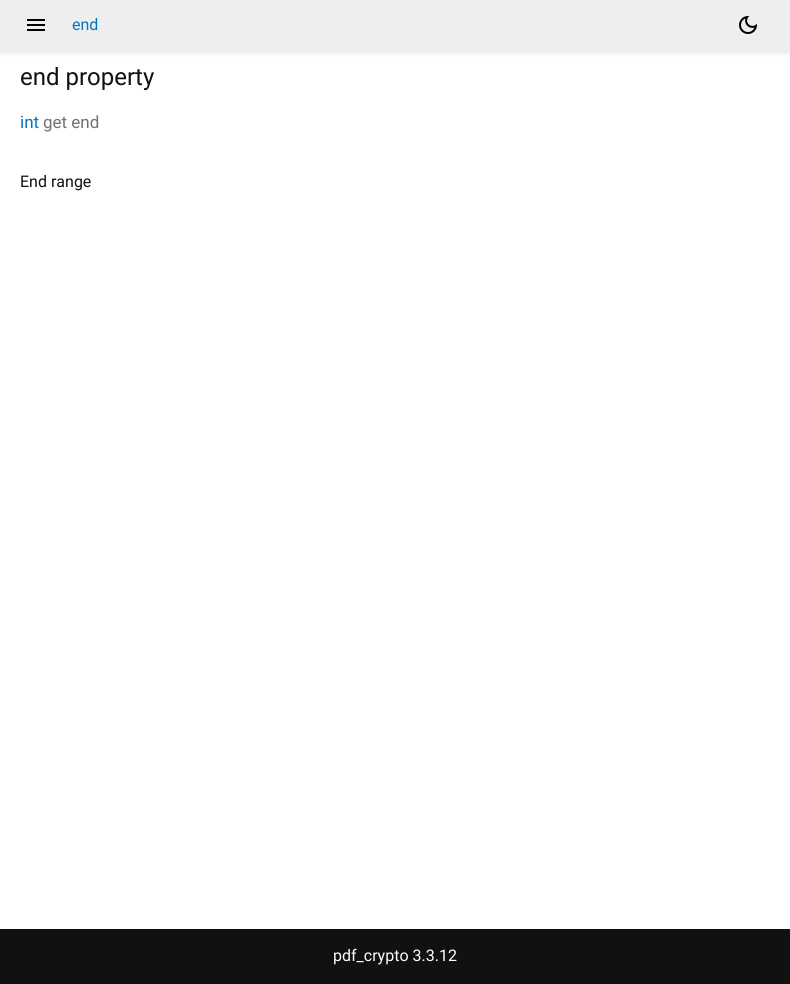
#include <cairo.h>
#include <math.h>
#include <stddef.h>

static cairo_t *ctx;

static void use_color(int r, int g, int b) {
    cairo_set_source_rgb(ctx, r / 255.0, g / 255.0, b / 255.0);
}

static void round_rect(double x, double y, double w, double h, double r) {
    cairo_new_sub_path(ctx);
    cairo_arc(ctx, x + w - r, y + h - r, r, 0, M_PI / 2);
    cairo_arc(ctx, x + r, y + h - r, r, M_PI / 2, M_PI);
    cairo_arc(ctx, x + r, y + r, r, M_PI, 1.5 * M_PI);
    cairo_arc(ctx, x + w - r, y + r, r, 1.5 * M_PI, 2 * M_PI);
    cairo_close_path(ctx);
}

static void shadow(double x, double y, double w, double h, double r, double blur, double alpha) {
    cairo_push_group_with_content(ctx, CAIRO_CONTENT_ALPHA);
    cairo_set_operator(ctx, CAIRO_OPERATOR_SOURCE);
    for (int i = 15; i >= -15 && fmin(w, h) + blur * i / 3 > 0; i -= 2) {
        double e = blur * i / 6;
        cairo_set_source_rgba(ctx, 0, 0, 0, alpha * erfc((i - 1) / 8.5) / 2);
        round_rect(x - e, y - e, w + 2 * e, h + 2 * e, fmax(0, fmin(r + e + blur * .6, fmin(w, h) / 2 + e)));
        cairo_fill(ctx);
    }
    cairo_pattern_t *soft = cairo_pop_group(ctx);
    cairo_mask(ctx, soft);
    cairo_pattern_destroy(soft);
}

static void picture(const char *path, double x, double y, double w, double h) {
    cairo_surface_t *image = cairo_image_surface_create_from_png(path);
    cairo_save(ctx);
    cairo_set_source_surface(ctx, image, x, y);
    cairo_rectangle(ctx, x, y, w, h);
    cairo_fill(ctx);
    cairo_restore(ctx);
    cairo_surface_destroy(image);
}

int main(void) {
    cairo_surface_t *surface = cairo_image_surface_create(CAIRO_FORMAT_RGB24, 790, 984);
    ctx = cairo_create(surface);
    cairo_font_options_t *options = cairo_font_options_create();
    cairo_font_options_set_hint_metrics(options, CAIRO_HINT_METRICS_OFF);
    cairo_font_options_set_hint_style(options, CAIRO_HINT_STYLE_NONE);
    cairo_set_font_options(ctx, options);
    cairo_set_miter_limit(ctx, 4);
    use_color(255, 255, 255);
    cairo_paint(ctx);
    use_color(0, 0, 0);
    shadow(0, 3, 790, 50, 0, 2.5, 0.1);
    use_color(238, 238, 238);
    cairo_rectangle(ctx, 0, 0, 790, 50);
    cairo_fill(ctx);
    picture("img1.png", 27, 19, 18, 12);
    cairo_select_font_face(ctx, "Roboto", CAIRO_FONT_SLANT_NORMAL, CAIRO_FONT_WEIGHT_NORMAL);
    cairo_set_font_size(ctx, 16);
    use_color(1, 117, 194);
    cairo_move_to(ctx, 72, 30);
    cairo_show_text(ctx, "end");
    picture("img2.png", 739, 16, 18, 18);
    cairo_set_font_size(ctx, 24);
    use_color(17, 17, 17);
    cairo_move_to(ctx, 20, 85);
    cairo_show_text(ctx, "end property");
    cairo_set_font_size(ctx, 17);
    use_color(1, 117, 194);
    cairo_move_to(ctx, 20, 128);
    cairo_show_text(ctx, "int");
    use_color(114, 114, 114);
    cairo_move_to(ctx, 43, 128);
    cairo_show_text(ctx, "get end");
    cairo_set_font_size(ctx, 16);
    use_color(17, 17, 17);
    cairo_move_to(ctx, 20, 187);
    cairo_show_text(ctx, "End range");
    cairo_rectangle(ctx, 0, 929, 790, 55);
    cairo_fill(ctx);
    use_color(255, 255, 255);
    cairo_move_to(ctx, 333, 961);
    cairo_show_text(ctx, "pdf_crypto 3.3.12");
    cairo_surface_write_to_png(surface, "result.png");
    cairo_font_options_destroy(options);
    cairo_destroy(ctx);
    cairo_surface_destroy(surface);
    return 0;
}
